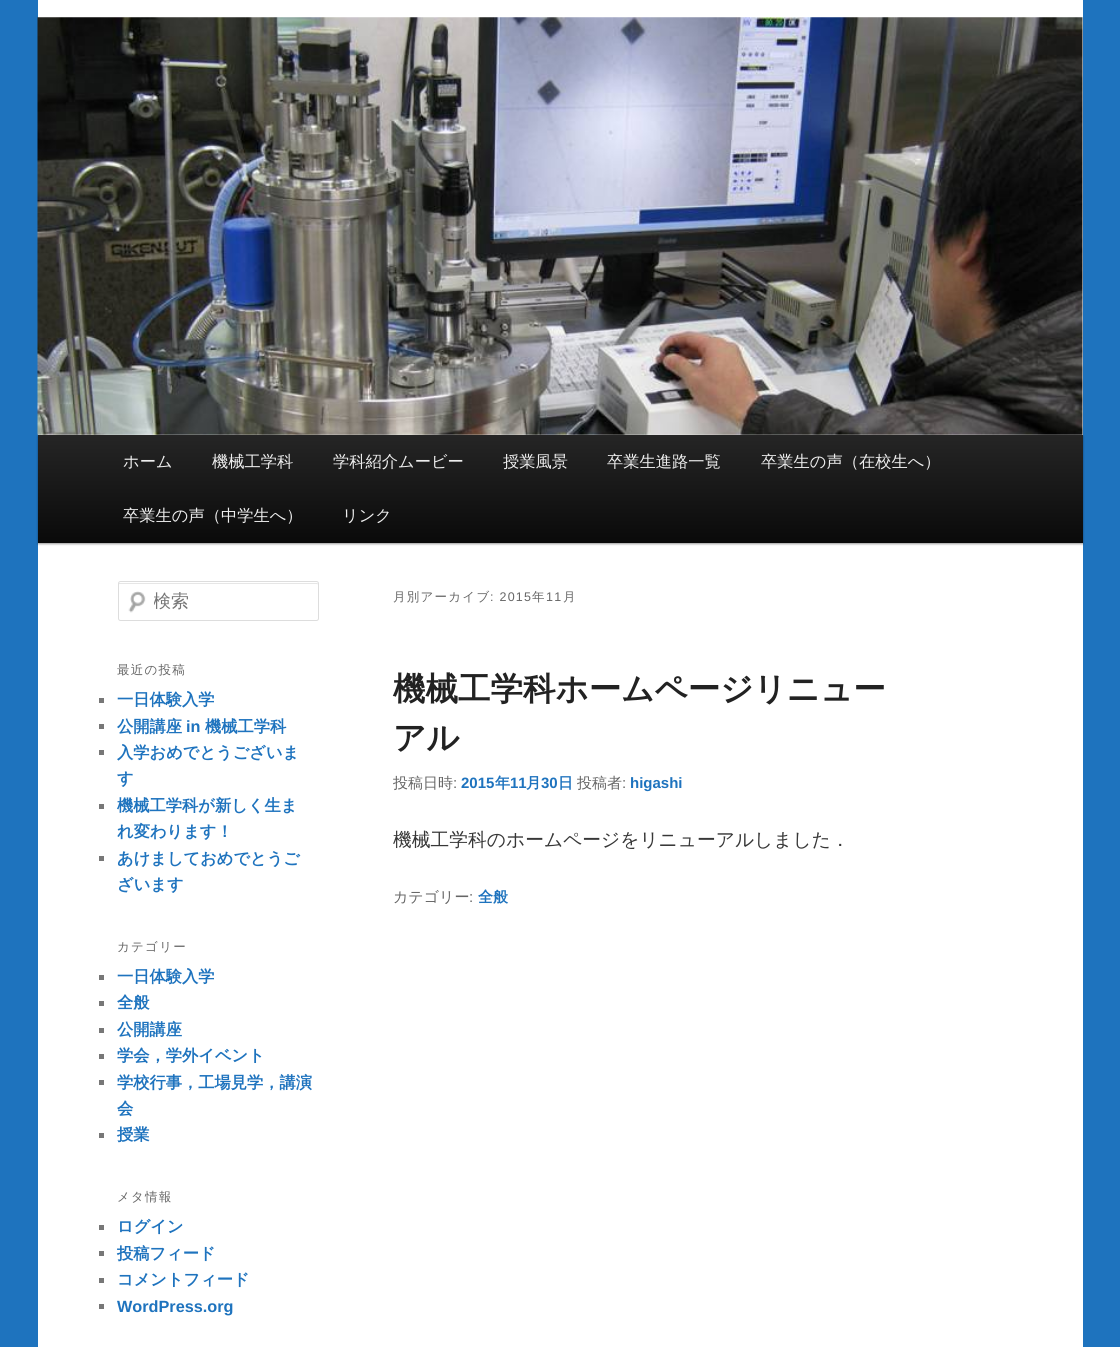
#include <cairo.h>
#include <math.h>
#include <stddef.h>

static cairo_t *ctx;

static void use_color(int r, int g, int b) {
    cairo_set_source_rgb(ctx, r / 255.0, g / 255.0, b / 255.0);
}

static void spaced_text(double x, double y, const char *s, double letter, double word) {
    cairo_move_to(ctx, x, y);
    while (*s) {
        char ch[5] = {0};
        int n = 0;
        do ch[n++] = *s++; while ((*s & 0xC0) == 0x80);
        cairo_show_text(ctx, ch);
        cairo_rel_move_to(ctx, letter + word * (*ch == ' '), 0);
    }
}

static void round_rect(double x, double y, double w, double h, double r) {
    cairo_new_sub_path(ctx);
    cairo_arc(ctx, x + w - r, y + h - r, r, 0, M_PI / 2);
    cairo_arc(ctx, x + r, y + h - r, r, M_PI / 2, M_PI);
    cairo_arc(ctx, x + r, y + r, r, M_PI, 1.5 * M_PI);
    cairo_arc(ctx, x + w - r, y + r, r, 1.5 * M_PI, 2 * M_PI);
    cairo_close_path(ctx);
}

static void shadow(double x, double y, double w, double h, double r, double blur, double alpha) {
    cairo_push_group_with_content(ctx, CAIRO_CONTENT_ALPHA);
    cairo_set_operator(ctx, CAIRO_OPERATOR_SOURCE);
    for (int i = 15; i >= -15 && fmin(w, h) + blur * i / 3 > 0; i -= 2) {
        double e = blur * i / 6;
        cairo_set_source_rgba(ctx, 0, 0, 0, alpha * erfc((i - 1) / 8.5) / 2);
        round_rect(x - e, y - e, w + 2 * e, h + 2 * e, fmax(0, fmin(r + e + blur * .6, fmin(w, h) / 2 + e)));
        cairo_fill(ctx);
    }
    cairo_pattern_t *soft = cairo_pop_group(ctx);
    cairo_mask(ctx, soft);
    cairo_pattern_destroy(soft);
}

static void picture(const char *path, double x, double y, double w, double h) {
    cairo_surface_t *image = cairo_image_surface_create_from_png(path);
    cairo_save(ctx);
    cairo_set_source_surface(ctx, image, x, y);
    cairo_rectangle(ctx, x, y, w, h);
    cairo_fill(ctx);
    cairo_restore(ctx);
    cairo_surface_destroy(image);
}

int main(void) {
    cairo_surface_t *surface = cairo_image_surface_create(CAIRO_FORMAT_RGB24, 1120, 1347);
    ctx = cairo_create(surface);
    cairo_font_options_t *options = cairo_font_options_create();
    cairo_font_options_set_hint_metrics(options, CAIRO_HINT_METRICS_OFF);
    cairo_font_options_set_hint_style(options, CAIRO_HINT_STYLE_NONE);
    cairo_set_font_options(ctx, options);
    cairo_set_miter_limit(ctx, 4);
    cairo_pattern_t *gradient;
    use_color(30, 115, 190);
    cairo_paint(ctx);
    use_color(255, 255, 255);
    cairo_rectangle(ctx, 38, 0, 1045, 1347);
    cairo_fill(ctx);
    use_color(0, 0, 0);
    shadow(38, 436, 1045, 108, 0, 1, 0.4);
    picture("img1.png", 37, 17, 1046, 418);
    gradient = cairo_pattern_create_linear(560, 435, 560, 543);
    cairo_pattern_add_color_stop_rgba(gradient, 0, 0.145, 0.145, 0.145, 1);
    cairo_pattern_add_color_stop_rgba(gradient, 1, 0.039, 0.039, 0.039, 1);
    cairo_set_source(ctx, gradient);
    cairo_pattern_destroy(gradient);
    cairo_rectangle(ctx, 38, 435, 1045, 108);
    cairo_fill(ctx);
    cairo_select_font_face(ctx, "WenQuanYi Zen Hei Medium", CAIRO_FONT_SLANT_NORMAL, CAIRO_FONT_WEIGHT_NORMAL);
    cairo_set_font_size(ctx, 16.25);
    use_color(238, 238, 238);
    cairo_move_to(ctx, 123, 467);
    cairo_show_text(ctx, "ホーム");
    cairo_move_to(ctx, 212, 467);
    cairo_show_text(ctx, "機械工学科");
    cairo_move_to(ctx, 333, 467);
    cairo_show_text(ctx, "学科紹介ムービー");
    cairo_move_to(ctx, 503, 467);
    cairo_show_text(ctx, "授業風景");
    cairo_move_to(ctx, 607, 467);
    cairo_show_text(ctx, "卒業生進路一覧");
    cairo_move_to(ctx, 761, 467);
    cairo_show_text(ctx, "卒業生の声（在校生へ）");
    cairo_move_to(ctx, 123, 521);
    cairo_show_text(ctx, "卒業生の声（中学生へ）");
    cairo_move_to(ctx, 342, 521);
    cairo_show_text(ctx, "リンク");
    picture("img2.png", 128, 591, 18, 22);
    use_color(230, 230, 230);
    cairo_new_path(ctx);
    cairo_move_to(ctx, 120, 584);
    cairo_line_to(ctx, 316, 584);
    cairo_curve_to(ctx, 317, 584, 318, 584, 318, 585);
    cairo_curve_to(ctx, 318, 584, 318, 583, 317, 583);
    cairo_line_to(ctx, 119, 583);
    cairo_line_to(ctx, 119, 585);
    cairo_curve_to(ctx, 119, 584, 119, 584, 120, 584);
    cairo_close_path(ctx);
    cairo_fill(ctx);
    round_rect(118.5, 581.5, 200, 39, 2);
    use_color(221, 221, 221);
    cairo_set_line_width(ctx, 1);
    cairo_stroke(ctx);
    cairo_save(ctx);
    cairo_rectangle(ctx, 154, 591, 151, 23);
    cairo_clip(ctx);
    cairo_set_font_size(ctx, 18);
    use_color(117, 117, 117);
    cairo_move_to(ctx, 153, 607);
    cairo_show_text(ctx, "検索");
    cairo_restore(ctx);
    cairo_set_font_size(ctx, 12.5);
    use_color(102, 102, 102);
    spaced_text(117, 674, "最近の投稿", 1.25, 0);
    use_color(119, 119, 119);
    cairo_rectangle(ctx, 99, 698, 5, 5);
    cairo_fill(ctx);
    cairo_select_font_face(ctx, "WenQuanYi Zen Hei", CAIRO_FONT_SLANT_NORMAL, CAIRO_FONT_WEIGHT_BOLD);
    cairo_set_font_size(ctx, 16.25);
    use_color(30, 115, 190);
    cairo_move_to(ctx, 117, 705);
    cairo_show_text(ctx, "一日体験入学");
    use_color(119, 119, 119);
    cairo_rectangle(ctx, 99, 724, 5, 5);
    cairo_fill(ctx);
    use_color(30, 115, 190);
    cairo_move_to(ctx, 117, 732);
    cairo_show_text(ctx, "公開講座");
    cairo_select_font_face(ctx, "Liberation Sans", CAIRO_FONT_SLANT_NORMAL, CAIRO_FONT_WEIGHT_BOLD);
    cairo_move_to(ctx, 186, 732);
    cairo_show_text(ctx, "in");
    cairo_select_font_face(ctx, "WenQuanYi Zen Hei", CAIRO_FONT_SLANT_NORMAL, CAIRO_FONT_WEIGHT_BOLD);
    cairo_move_to(ctx, 205, 732);
    cairo_show_text(ctx, "機械工学科");
    use_color(119, 119, 119);
    cairo_rectangle(ctx, 99, 750, 5, 5);
    cairo_fill(ctx);
    use_color(30, 115, 190);
    cairo_move_to(ctx, 117, 758);
    cairo_show_text(ctx, "入学おめでとうございま");
    cairo_move_to(ctx, 117, 784);
    cairo_show_text(ctx, "す");
    use_color(119, 119, 119);
    cairo_rectangle(ctx, 99, 804, 5, 5);
    cairo_fill(ctx);
    use_color(30, 115, 190);
    cairo_move_to(ctx, 117, 811);
    cairo_show_text(ctx, "機械工学科が新しく生ま");
    cairo_move_to(ctx, 117, 837);
    cairo_show_text(ctx, "れ変わります！");
    use_color(119, 119, 119);
    cairo_rectangle(ctx, 99, 856, 5, 5);
    cairo_fill(ctx);
    use_color(30, 115, 190);
    cairo_move_to(ctx, 117, 864);
    cairo_show_text(ctx, "あけましておめでとうご");
    cairo_move_to(ctx, 117, 890);
    cairo_show_text(ctx, "ざいます");
    cairo_select_font_face(ctx, "WenQuanYi Zen Hei Medium", CAIRO_FONT_SLANT_NORMAL, CAIRO_FONT_WEIGHT_NORMAL);
    cairo_set_font_size(ctx, 12.5);
    use_color(102, 102, 102);
    spaced_text(117, 951, "カテゴリー", 1.25, 0);
    use_color(119, 119, 119);
    cairo_rectangle(ctx, 99, 975, 5, 5);
    cairo_fill(ctx);
    cairo_select_font_face(ctx, "WenQuanYi Zen Hei", CAIRO_FONT_SLANT_NORMAL, CAIRO_FONT_WEIGHT_BOLD);
    cairo_set_font_size(ctx, 16.25);
    use_color(30, 115, 190);
    cairo_move_to(ctx, 117, 982);
    cairo_show_text(ctx, "一日体験入学");
    use_color(119, 119, 119);
    cairo_rectangle(ctx, 99, 1001, 5, 5);
    cairo_fill(ctx);
    use_color(30, 115, 190);
    cairo_move_to(ctx, 117, 1008);
    cairo_show_text(ctx, "全般");
    use_color(119, 119, 119);
    cairo_rectangle(ctx, 99, 1028, 5, 5);
    cairo_fill(ctx);
    use_color(30, 115, 190);
    cairo_move_to(ctx, 117, 1035);
    cairo_show_text(ctx, "公開講座");
    use_color(119, 119, 119);
    cairo_rectangle(ctx, 99, 1054, 5, 5);
    cairo_fill(ctx);
    use_color(30, 115, 190);
    cairo_move_to(ctx, 117, 1061);
    cairo_show_text(ctx, "学会，学外イベント");
    use_color(119, 119, 119);
    cairo_rectangle(ctx, 99, 1080, 5, 5);
    cairo_fill(ctx);
    use_color(30, 115, 190);
    cairo_move_to(ctx, 117, 1088);
    cairo_show_text(ctx, "学校行事，工場見学，講演");
    cairo_move_to(ctx, 117, 1114);
    cairo_show_text(ctx, "会");
    use_color(119, 119, 119);
    cairo_rectangle(ctx, 99, 1133, 5, 5);
    cairo_fill(ctx);
    use_color(30, 115, 190);
    cairo_move_to(ctx, 117, 1140);
    cairo_show_text(ctx, "授業");
    cairo_select_font_face(ctx, "WenQuanYi Zen Hei Medium", CAIRO_FONT_SLANT_NORMAL, CAIRO_FONT_WEIGHT_NORMAL);
    cairo_set_font_size(ctx, 12.5);
    use_color(102, 102, 102);
    spaced_text(117, 1201, "メタ情報", 1.25, 0);
    use_color(119, 119, 119);
    cairo_rectangle(ctx, 99, 1225, 5, 5);
    cairo_fill(ctx);
    cairo_select_font_face(ctx, "WenQuanYi Zen Hei", CAIRO_FONT_SLANT_NORMAL, CAIRO_FONT_WEIGHT_BOLD);
    cairo_set_font_size(ctx, 16.25);
    use_color(30, 115, 190);
    cairo_move_to(ctx, 117, 1232);
    cairo_show_text(ctx, "ログイン");
    use_color(119, 119, 119);
    cairo_rectangle(ctx, 99, 1251, 5, 5);
    cairo_fill(ctx);
    use_color(30, 115, 190);
    cairo_move_to(ctx, 117, 1259);
    cairo_show_text(ctx, "投稿フィード");
    use_color(119, 119, 119);
    cairo_rectangle(ctx, 99, 1278, 5, 5);
    cairo_fill(ctx);
    use_color(30, 115, 190);
    cairo_move_to(ctx, 117, 1285);
    cairo_show_text(ctx, "コメントフィード");
    use_color(119, 119, 119);
    cairo_rectangle(ctx, 99, 1304, 5, 5);
    cairo_fill(ctx);
    cairo_select_font_face(ctx, "Liberation Sans", CAIRO_FONT_SLANT_NORMAL, CAIRO_FONT_WEIGHT_BOLD);
    use_color(30, 115, 190);
    cairo_move_to(ctx, 117, 1312);
    cairo_show_text(ctx, "WordPress.org");
    cairo_select_font_face(ctx, "WenQuanYi Zen Hei Medium", CAIRO_FONT_SLANT_NORMAL, CAIRO_FONT_WEIGHT_NORMAL);
    cairo_set_font_size(ctx, 12.5);
    use_color(102, 102, 102);
    spaced_text(393, 601, "月別アーカイブ", 1.25, 0);
    cairo_select_font_face(ctx, "Liberation Sans", CAIRO_FONT_SLANT_NORMAL, CAIRO_FONT_WEIGHT_NORMAL);
    spaced_text(490, 601, ": 2015", 1.25, 0);
    cairo_select_font_face(ctx, "WenQuanYi Zen Hei Medium", CAIRO_FONT_SLANT_NORMAL, CAIRO_FONT_WEIGHT_NORMAL);
    spaced_text(532, 601, "年", 1.25, 0);
    cairo_select_font_face(ctx, "Liberation Sans", CAIRO_FONT_SLANT_NORMAL, CAIRO_FONT_WEIGHT_NORMAL);
    spaced_text(546, 601, "11", 1.25, 0);
    cairo_select_font_face(ctx, "WenQuanYi Zen Hei Medium", CAIRO_FONT_SLANT_NORMAL, CAIRO_FONT_WEIGHT_NORMAL);
    spaced_text(563, 601, "月", 1.25, 0);
    cairo_select_font_face(ctx, "WenQuanYi Zen Hei", CAIRO_FONT_SLANT_NORMAL, CAIRO_FONT_WEIGHT_BOLD);
    cairo_set_font_size(ctx, 32.5);
    use_color(34, 34, 34);
    cairo_move_to(ctx, 393, 700);
    cairo_show_text(ctx, "機械工学科ホームページリニュー");
    cairo_move_to(ctx, 393, 749);
    cairo_show_text(ctx, "アル");
    cairo_select_font_face(ctx, "WenQuanYi Zen Hei Medium", CAIRO_FONT_SLANT_NORMAL, CAIRO_FONT_WEIGHT_NORMAL);
    cairo_set_font_size(ctx, 15);
    use_color(102, 102, 102);
    cairo_move_to(ctx, 393, 788);
    cairo_show_text(ctx, "投稿日時");
    cairo_select_font_face(ctx, "Liberation Sans", CAIRO_FONT_SLANT_NORMAL, CAIRO_FONT_WEIGHT_NORMAL);
    cairo_move_to(ctx, 453, 788);
    cairo_show_text(ctx, ":");
    cairo_select_font_face(ctx, "Liberation Sans", CAIRO_FONT_SLANT_NORMAL, CAIRO_FONT_WEIGHT_BOLD);
    use_color(30, 115, 190);
    cairo_move_to(ctx, 461, 788);
    cairo_show_text(ctx, "2015");
    cairo_select_font_face(ctx, "WenQuanYi Zen Hei", CAIRO_FONT_SLANT_NORMAL, CAIRO_FONT_WEIGHT_BOLD);
    cairo_move_to(ctx, 495, 788);
    cairo_show_text(ctx, "年");
    cairo_select_font_face(ctx, "Liberation Sans", CAIRO_FONT_SLANT_NORMAL, CAIRO_FONT_WEIGHT_BOLD);
    cairo_move_to(ctx, 510, 788);
    cairo_show_text(ctx, "11");
    cairo_select_font_face(ctx, "WenQuanYi Zen Hei", CAIRO_FONT_SLANT_NORMAL, CAIRO_FONT_WEIGHT_BOLD);
    cairo_move_to(ctx, 526, 788);
    cairo_show_text(ctx, "月");
    cairo_select_font_face(ctx, "Liberation Sans", CAIRO_FONT_SLANT_NORMAL, CAIRO_FONT_WEIGHT_BOLD);
    cairo_move_to(ctx, 541, 788);
    cairo_show_text(ctx, "30");
    cairo_select_font_face(ctx, "WenQuanYi Zen Hei", CAIRO_FONT_SLANT_NORMAL, CAIRO_FONT_WEIGHT_BOLD);
    cairo_move_to(ctx, 558, 788);
    cairo_show_text(ctx, "日");
    cairo_select_font_face(ctx, "WenQuanYi Zen Hei Medium", CAIRO_FONT_SLANT_NORMAL, CAIRO_FONT_WEIGHT_NORMAL);
    use_color(102, 102, 102);
    cairo_move_to(ctx, 577, 788);
    cairo_show_text(ctx, "投稿者");
    cairo_select_font_face(ctx, "Liberation Sans", CAIRO_FONT_SLANT_NORMAL, CAIRO_FONT_WEIGHT_NORMAL);
    cairo_move_to(ctx, 622, 788);
    cairo_show_text(ctx, ":");
    cairo_select_font_face(ctx, "Liberation Sans", CAIRO_FONT_SLANT_NORMAL, CAIRO_FONT_WEIGHT_BOLD);
    use_color(30, 115, 190);
    cairo_move_to(ctx, 630, 788);
    cairo_show_text(ctx, "higashi");
    cairo_select_font_face(ctx, "WenQuanYi Zen Hei Medium", CAIRO_FONT_SLANT_NORMAL, CAIRO_FONT_WEIGHT_NORMAL);
    cairo_set_font_size(ctx, 18.75);
    use_color(55, 55, 55);
    cairo_move_to(ctx, 393, 846);
    cairo_show_text(ctx, "機械工学科のホームページをリニューアルしました．");
    cairo_set_font_size(ctx, 15);
    use_color(102, 102, 102);
    cairo_move_to(ctx, 393, 902);
    cairo_show_text(ctx, "カテゴリー");
    cairo_select_font_face(ctx, "Liberation Sans", CAIRO_FONT_SLANT_NORMAL, CAIRO_FONT_WEIGHT_NORMAL);
    cairo_move_to(ctx, 469, 902);
    cairo_show_text(ctx, ":");
    cairo_select_font_face(ctx, "WenQuanYi Zen Hei", CAIRO_FONT_SLANT_NORMAL, CAIRO_FONT_WEIGHT_BOLD);
    use_color(30, 115, 190);
    cairo_move_to(ctx, 478, 902);
    cairo_show_text(ctx, "全般");
    cairo_surface_write_to_png(surface, "result.png");
    cairo_font_options_destroy(options);
    cairo_destroy(ctx);
    cairo_surface_destroy(surface);
    return 0;
}
